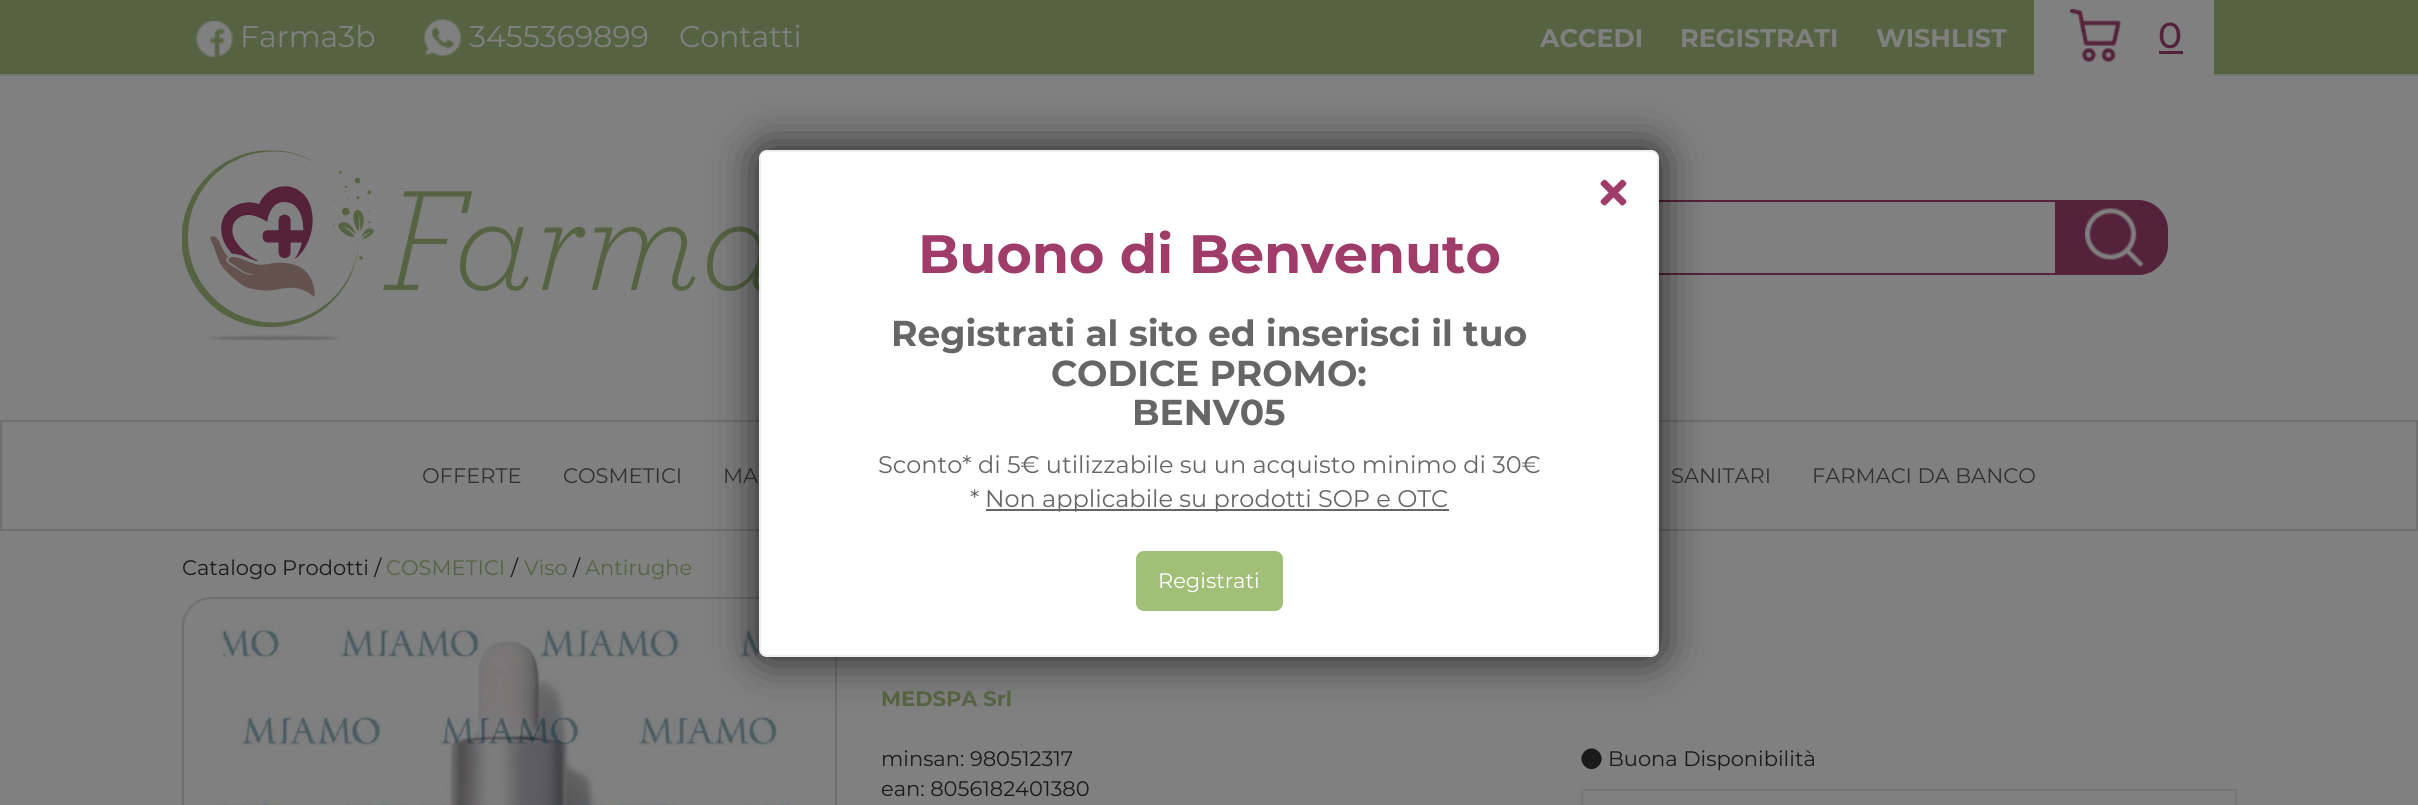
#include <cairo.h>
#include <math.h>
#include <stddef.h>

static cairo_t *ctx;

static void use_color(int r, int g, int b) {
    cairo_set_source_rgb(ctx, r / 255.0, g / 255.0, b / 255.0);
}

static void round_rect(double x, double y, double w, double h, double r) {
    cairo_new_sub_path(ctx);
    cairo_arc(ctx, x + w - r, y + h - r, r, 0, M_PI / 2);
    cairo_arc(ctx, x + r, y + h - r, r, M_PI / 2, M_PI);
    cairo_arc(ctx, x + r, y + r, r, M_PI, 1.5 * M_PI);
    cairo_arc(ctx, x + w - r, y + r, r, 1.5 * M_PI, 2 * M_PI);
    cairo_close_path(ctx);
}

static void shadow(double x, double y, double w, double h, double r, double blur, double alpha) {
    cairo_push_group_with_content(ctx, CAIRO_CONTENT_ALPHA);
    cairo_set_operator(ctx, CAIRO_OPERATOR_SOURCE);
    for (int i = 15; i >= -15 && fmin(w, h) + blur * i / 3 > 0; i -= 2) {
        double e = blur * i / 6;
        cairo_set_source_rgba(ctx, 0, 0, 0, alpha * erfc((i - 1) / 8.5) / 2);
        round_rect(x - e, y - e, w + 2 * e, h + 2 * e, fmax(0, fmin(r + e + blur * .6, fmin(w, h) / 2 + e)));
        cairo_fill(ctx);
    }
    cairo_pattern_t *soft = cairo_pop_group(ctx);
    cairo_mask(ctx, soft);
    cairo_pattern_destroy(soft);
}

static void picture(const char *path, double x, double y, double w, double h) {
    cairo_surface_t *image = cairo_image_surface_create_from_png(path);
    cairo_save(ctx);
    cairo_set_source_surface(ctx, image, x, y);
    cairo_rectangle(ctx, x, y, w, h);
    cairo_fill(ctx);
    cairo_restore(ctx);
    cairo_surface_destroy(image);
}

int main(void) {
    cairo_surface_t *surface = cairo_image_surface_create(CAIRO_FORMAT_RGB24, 2418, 805);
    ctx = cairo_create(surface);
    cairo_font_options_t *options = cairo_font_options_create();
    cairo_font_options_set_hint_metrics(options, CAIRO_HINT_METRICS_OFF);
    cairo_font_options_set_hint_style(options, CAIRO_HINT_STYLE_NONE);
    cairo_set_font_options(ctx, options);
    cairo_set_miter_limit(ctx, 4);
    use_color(128, 128, 128);
    cairo_paint(ctx);
    use_color(86, 99, 66);
    cairo_rectangle(ctx, 0, 0, 2418, 74);
    cairo_fill(ctx);
    use_color(118, 118, 118);
    cairo_rectangle(ctx, 0, 74, 2418, 2);
    cairo_fill(ctx);
    picture("img1.png", 196, 21, 37, 36);
    cairo_select_font_face(ctx, "Montserrat", CAIRO_FONT_SLANT_NORMAL, CAIRO_FONT_WEIGHT_NORMAL);
    cairo_set_font_size(ctx, 30);
    use_color(128, 128, 128);
    cairo_move_to(ctx, 240, 47);
    cairo_show_text(ctx, "Farma3b");
    picture("img2.png", 424, 19, 37, 37);
    cairo_move_to(ctx, 469, 47);
    cairo_show_text(ctx, "3455369899");
    cairo_move_to(ctx, 679, 47);
    cairo_show_text(ctx, "Contatti");
    cairo_select_font_face(ctx, "Montserrat", CAIRO_FONT_SLANT_NORMAL, CAIRO_FONT_WEIGHT_BOLD);
    cairo_set_font_size(ctx, 25.5);
    cairo_move_to(ctx, 1540, 47);
    cairo_show_text(ctx, "ACCEDI");
    cairo_move_to(ctx, 1680, 47);
    cairo_show_text(ctx, "REGISTRATI");
    cairo_move_to(ctx, 1876, 47);
    cairo_show_text(ctx, "WISHLIST");
    cairo_rectangle(ctx, 2034, 0, 180, 76);
    cairo_fill(ctx);
    picture("img3.png", 2070, 9, 51, 53);
    cairo_select_font_face(ctx, "Montserrat Medium", CAIRO_FONT_SLANT_NORMAL, CAIRO_FONT_WEIGHT_NORMAL);
    cairo_set_font_size(ctx, 36);
    use_color(85, 34, 59);
    cairo_move_to(ctx, 2158, 48);
    cairo_show_text(ctx, "0");
    cairo_rectangle(ctx, 2159, 51, 24, 3);
    cairo_fill(ctx);
    picture("img4.png", 182, 150, 577, 191);
    round_rect(1263, 201, 898, 73, 29);
    cairo_stroke(ctx);
    cairo_new_path(ctx);
    cairo_move_to(ctx, 2055, 200);
    cairo_line_to(ctx, 2138, 200);
    cairo_curve_to(ctx, 2154.5, 200, 2168, 213.5, 2168, 230);
    cairo_line_to(ctx, 2168, 245);
    cairo_curve_to(ctx, 2168, 261.5, 2154.5, 275, 2138, 275);
    cairo_line_to(ctx, 2055, 275);
    cairo_close_path(ctx);
    cairo_fill(ctx);
    picture("img5.png", 2085, 208, 59, 59);
    cairo_rectangle(ctx, 1, 421, 2416, 109);
    use_color(111, 111, 111);
    cairo_stroke(ctx);
    cairo_select_font_face(ctx, "Montserrat", CAIRO_FONT_SLANT_NORMAL, CAIRO_FONT_WEIGHT_NORMAL);
    cairo_set_font_size(ctx, 21);
    use_color(49, 49, 49);
    cairo_move_to(ctx, 422, 483);
    cairo_show_text(ctx, "OFFERTE");
    cairo_move_to(ctx, 563, 483);
    cairo_show_text(ctx, "COSMETICI");
    cairo_move_to(ctx, 723, 483);
    cairo_show_text(ctx, "MA");
    cairo_move_to(ctx, 1671, 483);
    cairo_show_text(ctx, "SANITARI");
    cairo_move_to(ctx, 1812, 483);
    cairo_show_text(ctx, "FARMACI DA BANCO");
    round_rect(183, 598, 653, 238, 29);
    use_color(111, 111, 111);
    cairo_stroke(ctx);
    picture("img7.png", 217, 619, 585, 186);
    use_color(0, 0, 0);
    shadow(759, 150, 900, 507, 8, 22.5, 0.75);
    use_color(255, 255, 255);
    round_rect(760, 151, 898, 505, 7);
    cairo_fill_preserve(ctx);
    use_color(239, 239, 239);
    cairo_stroke(ctx);
    picture("img6.png", 1600, 179, 27, 27);
    cairo_select_font_face(ctx, "Montserrat", CAIRO_FONT_SLANT_NORMAL, CAIRO_FONT_WEIGHT_BOLD);
    cairo_set_font_size(ctx, 54);
    use_color(160, 60, 106);
    cairo_move_to(ctx, 918, 273);
    cairo_show_text(ctx, "Buono di Benvenuto");
    cairo_set_font_size(ctx, 36);
    use_color(102, 102, 102);
    cairo_move_to(ctx, 891, 346);
    cairo_show_text(ctx, "Registrati al sito ed inserisci il tuo");
    cairo_move_to(ctx, 1051, 386);
    cairo_show_text(ctx, "CODICE PROMO:");
    cairo_move_to(ctx, 1132, 425);
    cairo_show_text(ctx, "BENV05");
    cairo_select_font_face(ctx, "Montserrat", CAIRO_FONT_SLANT_NORMAL, CAIRO_FONT_WEIGHT_NORMAL);
    cairo_set_font_size(ctx, 24);
    cairo_move_to(ctx, 878, 473);
    cairo_show_text(ctx, "Sconto* di 5€ utilizzabile su un acquisto minimo di 30€");
    cairo_move_to(ctx, 970, 507);
    cairo_show_text(ctx, "*");
    cairo_rectangle(ctx, 986, 509, 463, 2);
    cairo_fill(ctx);
    cairo_move_to(ctx, 985, 507);
    cairo_show_text(ctx, "Non applicabile su prodotti SOP e OTC");
    use_color(162, 191, 120);
    round_rect(1136, 551, 147, 60, 8);
    cairo_fill(ctx);
    cairo_set_font_size(ctx, 21);
    use_color(255, 255, 255);
    cairo_move_to(ctx, 1158, 588);
    cairo_show_text(ctx, "Registrati");
    use_color(26, 26, 26);
    cairo_move_to(ctx, 182, 575);
    cairo_show_text(ctx, "Catalogo Prodotti /");
    use_color(86, 99, 66);
    cairo_move_to(ctx, 386, 575);
    cairo_show_text(ctx, "COSMETICI");
    use_color(26, 26, 26);
    cairo_move_to(ctx, 511, 575);
    cairo_show_text(ctx, "/");
    use_color(86, 99, 66);
    cairo_move_to(ctx, 524, 575);
    cairo_show_text(ctx, "Viso");
    use_color(26, 26, 26);
    cairo_move_to(ctx, 573, 575);
    cairo_show_text(ctx, "/");
    use_color(86, 99, 66);
    cairo_move_to(ctx, 585, 575);
    cairo_show_text(ctx, "Antirughe");
    cairo_select_font_face(ctx, "Montserrat", CAIRO_FONT_SLANT_NORMAL, CAIRO_FONT_WEIGHT_BOLD);
    cairo_move_to(ctx, 881, 706);
    cairo_show_text(ctx, "MEDSPA Srl");
    cairo_select_font_face(ctx, "Montserrat", CAIRO_FONT_SLANT_NORMAL, CAIRO_FONT_WEIGHT_NORMAL);
    use_color(26, 26, 26);
    cairo_move_to(ctx, 881, 766);
    cairo_show_text(ctx, "minsan: 980512317");
    cairo_move_to(ctx, 881, 796);
    cairo_show_text(ctx, "ean: 8056182401380");
    cairo_new_path(ctx);
    cairo_move_to(ctx, 1584.5, 751.5);
    cairo_curve_to(ctx, 1594, 742, 1608, 756.5, 1598.5, 766);
    cairo_curve_to(ctx, 1589, 775.5, 1575, 761, 1584.5, 751.5);
    cairo_close_path(ctx);
    cairo_fill(ctx);
    cairo_move_to(ctx, 1608, 766);
    cairo_show_text(ctx, "Buona Disponibilità");
    cairo_rectangle(ctx, 1582, 790, 654, 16);
    use_color(118, 118, 118);
    cairo_stroke(ctx);
    cairo_surface_write_to_png(surface, "result.png");
    cairo_font_options_destroy(options);
    cairo_destroy(ctx);
    cairo_surface_destroy(surface);
    return 0;
}
